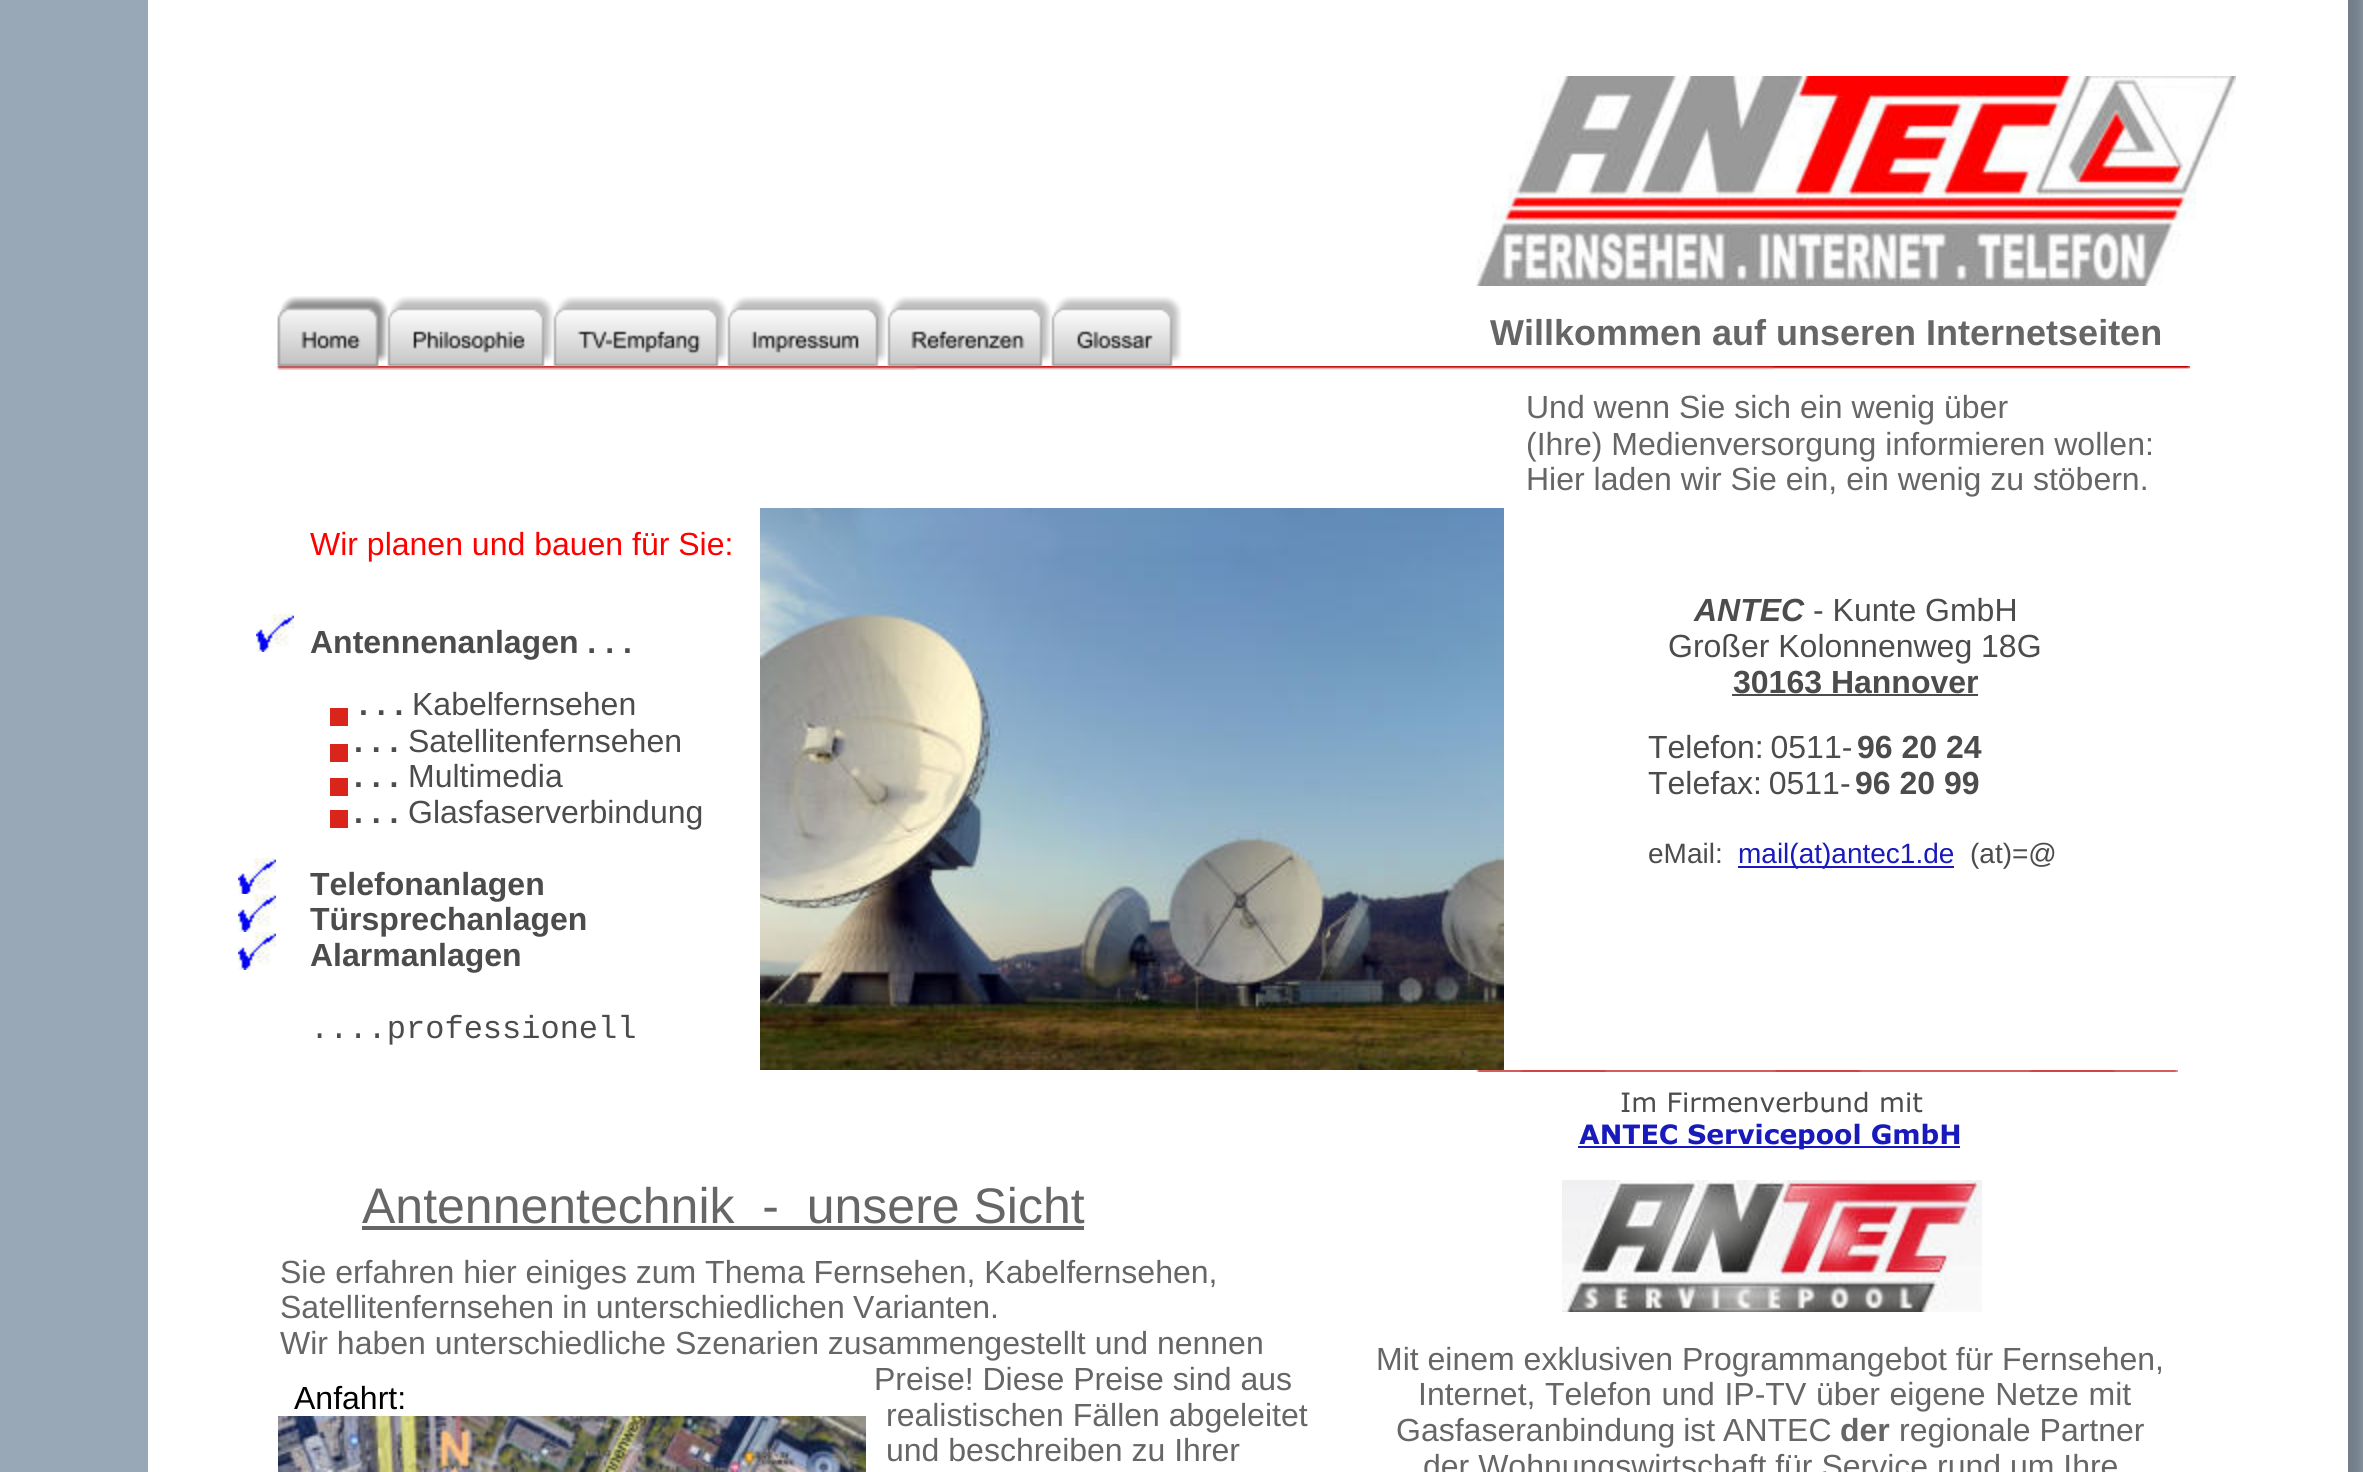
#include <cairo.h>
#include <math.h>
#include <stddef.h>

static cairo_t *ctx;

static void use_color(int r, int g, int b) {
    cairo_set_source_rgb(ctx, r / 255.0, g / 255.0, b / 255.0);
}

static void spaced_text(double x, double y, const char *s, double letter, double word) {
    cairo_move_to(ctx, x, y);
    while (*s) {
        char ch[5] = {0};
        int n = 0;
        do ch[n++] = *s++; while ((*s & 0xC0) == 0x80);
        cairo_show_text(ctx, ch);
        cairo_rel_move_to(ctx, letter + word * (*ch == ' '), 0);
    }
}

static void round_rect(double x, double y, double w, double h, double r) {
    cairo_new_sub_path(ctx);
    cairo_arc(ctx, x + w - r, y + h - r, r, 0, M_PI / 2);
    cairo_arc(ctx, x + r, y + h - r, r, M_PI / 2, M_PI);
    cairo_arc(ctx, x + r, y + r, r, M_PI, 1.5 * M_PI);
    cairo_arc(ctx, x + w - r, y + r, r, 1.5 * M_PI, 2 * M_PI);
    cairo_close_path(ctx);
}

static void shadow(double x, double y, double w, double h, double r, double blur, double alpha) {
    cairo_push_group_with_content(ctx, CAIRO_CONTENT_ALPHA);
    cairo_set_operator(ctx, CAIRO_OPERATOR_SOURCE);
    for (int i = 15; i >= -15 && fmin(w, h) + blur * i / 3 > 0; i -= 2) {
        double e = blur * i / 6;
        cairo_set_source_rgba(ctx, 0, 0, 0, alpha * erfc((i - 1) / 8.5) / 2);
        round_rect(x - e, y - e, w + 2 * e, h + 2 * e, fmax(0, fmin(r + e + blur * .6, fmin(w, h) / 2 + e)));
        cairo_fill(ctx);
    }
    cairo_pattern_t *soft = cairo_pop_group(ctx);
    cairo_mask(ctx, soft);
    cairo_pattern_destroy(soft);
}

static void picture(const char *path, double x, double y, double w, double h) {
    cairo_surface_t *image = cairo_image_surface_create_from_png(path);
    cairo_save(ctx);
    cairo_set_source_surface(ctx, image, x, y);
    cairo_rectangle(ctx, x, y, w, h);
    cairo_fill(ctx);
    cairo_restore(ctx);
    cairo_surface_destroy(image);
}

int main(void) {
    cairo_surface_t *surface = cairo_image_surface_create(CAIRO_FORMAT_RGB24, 2363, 1472);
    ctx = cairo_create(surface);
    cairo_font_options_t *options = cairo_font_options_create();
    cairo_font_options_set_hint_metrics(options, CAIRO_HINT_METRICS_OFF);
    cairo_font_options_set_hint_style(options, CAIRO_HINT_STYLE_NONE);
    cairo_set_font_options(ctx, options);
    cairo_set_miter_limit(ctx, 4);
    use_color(153, 168, 182);
    cairo_paint(ctx);
    use_color(0, 0, 0);
    shadow(164, -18, 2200, 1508, 0, 6, 0.25);
    use_color(255, 255, 255);
    cairo_rectangle(ctx, 148, 0, 2200, 1472);
    cairo_fill(ctx);
    picture("img9.png", 276, 366, 1914, 4);
    picture("img1.png", 277, 296, 111, 71);
    picture("img3.png", 387, 296, 167, 71);
    picture("img2.png", 277, 296, 111, 71);
    picture("img4.png", 553, 296, 175, 71);
    picture("img5.png", 727, 296, 160, 71);
    picture("img6.png", 887, 296, 165, 71);
    picture("img7.png", 1051, 296, 131, 71);
    picture("img8.png", 1476, 76, 760, 210);
    cairo_select_font_face(ctx, "Liberation Sans", CAIRO_FONT_SLANT_NORMAL, CAIRO_FONT_WEIGHT_BOLD);
    cairo_set_font_size(ctx, 36);
    use_color(102, 102, 102);
    cairo_move_to(ctx, 1490, 345);
    cairo_show_text(ctx, "Willkommen auf unseren Internetseiten");
    cairo_select_font_face(ctx, "Liberation Sans", CAIRO_FONT_SLANT_NORMAL, CAIRO_FONT_WEIGHT_NORMAL);
    cairo_set_font_size(ctx, 32);
    cairo_move_to(ctx, 1526, 418);
    cairo_show_text(ctx, "Und wenn Sie sich ein wenig über");
    cairo_move_to(ctx, 1526, 455);
    cairo_show_text(ctx, "(Ihre) Medienversorgung informieren wollen:");
    cairo_move_to(ctx, 1526, 490);
    cairo_show_text(ctx, "Hier laden wir Sie ein, ein wenig zu stöbern.");
    picture("img10.png", 256, 614, 38, 38);
    use_color(255, 0, 0);
    cairo_move_to(ctx, 310, 555);
    cairo_show_text(ctx, "Wir planen und bauen für Sie:");
    cairo_select_font_face(ctx, "Liberation Sans", CAIRO_FONT_SLANT_NORMAL, CAIRO_FONT_WEIGHT_BOLD);
    use_color(76, 76, 76);
    cairo_move_to(ctx, 310, 653);
    cairo_show_text(ctx, "Antennenanlagen . . .");
    cairo_move_to(ctx, 359, 715);
    cairo_show_text(ctx, ". . .");
    cairo_select_font_face(ctx, "Liberation Sans", CAIRO_FONT_SLANT_NORMAL, CAIRO_FONT_WEIGHT_NORMAL);
    cairo_move_to(ctx, 412, 715);
    cairo_show_text(ctx, "Kabelfernsehen");
    cairo_select_font_face(ctx, "Liberation Sans", CAIRO_FONT_SLANT_NORMAL, CAIRO_FONT_WEIGHT_BOLD);
    cairo_move_to(ctx, 354, 752);
    cairo_show_text(ctx, ". . .");
    cairo_select_font_face(ctx, "Liberation Sans", CAIRO_FONT_SLANT_NORMAL, CAIRO_FONT_WEIGHT_NORMAL);
    cairo_move_to(ctx, 408, 752);
    cairo_show_text(ctx, "Satellitenfernsehen");
    cairo_select_font_face(ctx, "Liberation Sans", CAIRO_FONT_SLANT_NORMAL, CAIRO_FONT_WEIGHT_BOLD);
    cairo_move_to(ctx, 354, 787);
    cairo_show_text(ctx, ". . .");
    cairo_select_font_face(ctx, "Liberation Sans", CAIRO_FONT_SLANT_NORMAL, CAIRO_FONT_WEIGHT_NORMAL);
    cairo_move_to(ctx, 408, 787);
    cairo_show_text(ctx, "Multimedia");
    cairo_select_font_face(ctx, "Liberation Sans", CAIRO_FONT_SLANT_NORMAL, CAIRO_FONT_WEIGHT_BOLD);
    cairo_move_to(ctx, 354, 823);
    cairo_show_text(ctx, ". . .");
    cairo_select_font_face(ctx, "Liberation Sans", CAIRO_FONT_SLANT_NORMAL, CAIRO_FONT_WEIGHT_NORMAL);
    cairo_move_to(ctx, 408, 823);
    cairo_show_text(ctx, "Glasfaserverbindung");
    cairo_select_font_face(ctx, "Liberation Sans", CAIRO_FONT_SLANT_NORMAL, CAIRO_FONT_WEIGHT_BOLD);
    cairo_move_to(ctx, 310, 895);
    cairo_show_text(ctx, "Telefonanlagen");
    cairo_move_to(ctx, 310, 930);
    cairo_show_text(ctx, "Türsprechanlagen");
    cairo_move_to(ctx, 310, 966);
    cairo_show_text(ctx, "Alarmanlagen");
    cairo_select_font_face(ctx, "Liberation Mono", CAIRO_FONT_SLANT_NORMAL, CAIRO_FONT_WEIGHT_NORMAL);
    cairo_move_to(ctx, 310, 1038);
    cairo_show_text(ctx, "....professionell");
    cairo_select_font_face(ctx, "Liberation Sans", CAIRO_FONT_SLANT_ITALIC, CAIRO_FONT_WEIGHT_BOLD);
    cairo_move_to(ctx, 1694, 621);
    cairo_show_text(ctx, "ANTEC");
    cairo_select_font_face(ctx, "Liberation Sans", CAIRO_FONT_SLANT_NORMAL, CAIRO_FONT_WEIGHT_NORMAL);
    cairo_move_to(ctx, 1813, 621);
    cairo_show_text(ctx, "- Kunte GmbH");
    cairo_move_to(ctx, 1668, 657);
    cairo_show_text(ctx, "Großer Kolonnenweg 18G");
    cairo_select_font_face(ctx, "Liberation Sans", CAIRO_FONT_SLANT_NORMAL, CAIRO_FONT_WEIGHT_BOLD);
    cairo_move_to(ctx, 1733, 693);
    cairo_show_text(ctx, "30163 Hannover");
    cairo_rectangle(ctx, 1732, 694, 246, 2);
    cairo_fill(ctx);
    cairo_select_font_face(ctx, "Liberation Sans", CAIRO_FONT_SLANT_NORMAL, CAIRO_FONT_WEIGHT_NORMAL);
    spaced_text(1648, 758, "Telefon: 0511-", 0, -2);
    cairo_select_font_face(ctx, "Liberation Sans", CAIRO_FONT_SLANT_NORMAL, CAIRO_FONT_WEIGHT_BOLD);
    cairo_move_to(ctx, 1857, 758);
    cairo_show_text(ctx, "96 20 24");
    cairo_select_font_face(ctx, "Liberation Sans", CAIRO_FONT_SLANT_NORMAL, CAIRO_FONT_WEIGHT_NORMAL);
    spaced_text(1648, 794, "Telefax: 0511-", 0, -2);
    cairo_select_font_face(ctx, "Liberation Sans", CAIRO_FONT_SLANT_NORMAL, CAIRO_FONT_WEIGHT_BOLD);
    cairo_move_to(ctx, 1855, 794);
    cairo_show_text(ctx, "96 20 99");
    cairo_select_font_face(ctx, "Liberation Sans", CAIRO_FONT_SLANT_NORMAL, CAIRO_FONT_WEIGHT_NORMAL);
    cairo_set_font_size(ctx, 28);
    cairo_move_to(ctx, 1648, 863);
    cairo_show_text(ctx, "eMail:");
    use_color(25, 26, 188);
    cairo_rectangle(ctx, 1738, 866, 216, 2);
    cairo_fill(ctx);
    cairo_move_to(ctx, 1738, 863);
    cairo_show_text(ctx, "mail(at)antec1.de");
    use_color(76, 76, 76);
    cairo_move_to(ctx, 1970, 863);
    cairo_show_text(ctx, "(at)=@");
    use_color(218, 37, 29);
    cairo_rectangle(ctx, 330, 708, 18, 18);
    cairo_fill(ctx);
    cairo_rectangle(ctx, 330, 744, 18, 18);
    cairo_fill(ctx);
    cairo_rectangle(ctx, 330, 778, 18, 18);
    cairo_fill(ctx);
    cairo_rectangle(ctx, 330, 810, 18, 18);
    cairo_fill(ctx);
    picture("img11.png", 238, 858, 38, 36);
    picture("img10.png", 238, 894, 38, 38);
    picture("img10.png", 238, 932, 38, 38);
    picture("img12.png", 1476, 1070, 702, 2);
    cairo_select_font_face(ctx, "Verdana", CAIRO_FONT_SLANT_NORMAL, CAIRO_FONT_WEIGHT_NORMAL);
    cairo_set_font_size(ctx, 26.7);
    use_color(76, 76, 76);
    cairo_move_to(ctx, 1620, 1112);
    cairo_show_text(ctx, "Im Firmenverbund mit");
    use_color(25, 26, 188);
    cairo_rectangle(ctx, 1578, 1146, 382, 2);
    cairo_fill(ctx);
    cairo_select_font_face(ctx, "Verdana", CAIRO_FONT_SLANT_NORMAL, CAIRO_FONT_WEIGHT_BOLD);
    cairo_move_to(ctx, 1579, 1144);
    cairo_show_text(ctx, "ANTEC Servicepool GmbH");
    cairo_select_font_face(ctx, "Liberation Sans", CAIRO_FONT_SLANT_NORMAL, CAIRO_FONT_WEIGHT_NORMAL);
    cairo_set_font_size(ctx, 32);
    use_color(102, 102, 102);
    cairo_move_to(ctx, 1376, 1370);
    cairo_show_text(ctx, "Mit einem exklusiven Programmangebot für Fernsehen,");
    spaced_text(1418, 1405, "Internet, Telefon und IP-TV über eigene Netze mit", 0, 0.75);
    spaced_text(1396, 1441, "Gasfaseranbindung ist ANTEC", 0, -1);
    cairo_select_font_face(ctx, "Liberation Sans", CAIRO_FONT_SLANT_NORMAL, CAIRO_FONT_WEIGHT_BOLD);
    cairo_move_to(ctx, 1840, 1441);
    cairo_show_text(ctx, "der");
    cairo_select_font_face(ctx, "Liberation Sans", CAIRO_FONT_SLANT_NORMAL, CAIRO_FONT_WEIGHT_NORMAL);
    cairo_move_to(ctx, 1899, 1441);
    cairo_show_text(ctx, "regionale Partner");
    cairo_move_to(ctx, 1423, 1477);
    cairo_show_text(ctx, "der Wohnungswirtschaft für Service rund um Ihre");
    cairo_move_to(ctx, 280, 1283);
    cairo_show_text(ctx, "Sie erfahren hier einiges zum Thema Fernsehen, Kabelfernsehen,");
    spaced_text(280, 1318, "Satellitenfernsehen in unterschiedlichen Varianten.", 0, -0.5);
    cairo_move_to(ctx, 280, 1354);
    cairo_show_text(ctx, "Wir haben unterschiedliche Szenarien zusammengestellt und nennen");
    cairo_move_to(ctx, 874, 1390);
    cairo_show_text(ctx, "Preise! Diese Preise sind aus");
    cairo_move_to(ctx, 886, 1426);
    cairo_show_text(ctx, "realistischen Fällen abgeleitet");
    cairo_move_to(ctx, 886, 1461);
    cairo_show_text(ctx, "und beschreiben zu Ihrer");
    picture("img13.png", 1562, 1180, 420, 132);
    use_color(0, 0, 0);
    cairo_move_to(ctx, 294, 1409);
    cairo_show_text(ctx, "Anfahrt:");
    picture("img14.png", 278, 1416, 588, 56);
    picture("img15.png", 760, 508, 744, 562);
    cairo_set_font_size(ctx, 50);
    use_color(102, 102, 102);
    cairo_move_to(ctx, 362, 1223);
    cairo_show_text(ctx, "Antennentechnik  -  unsere Sicht");
    cairo_rectangle(ctx, 362, 1226, 722, 4);
    cairo_fill(ctx);
    cairo_surface_write_to_png(surface, "result.png");
    cairo_font_options_destroy(options);
    cairo_destroy(ctx);
    cairo_surface_destroy(surface);
    return 0;
}
